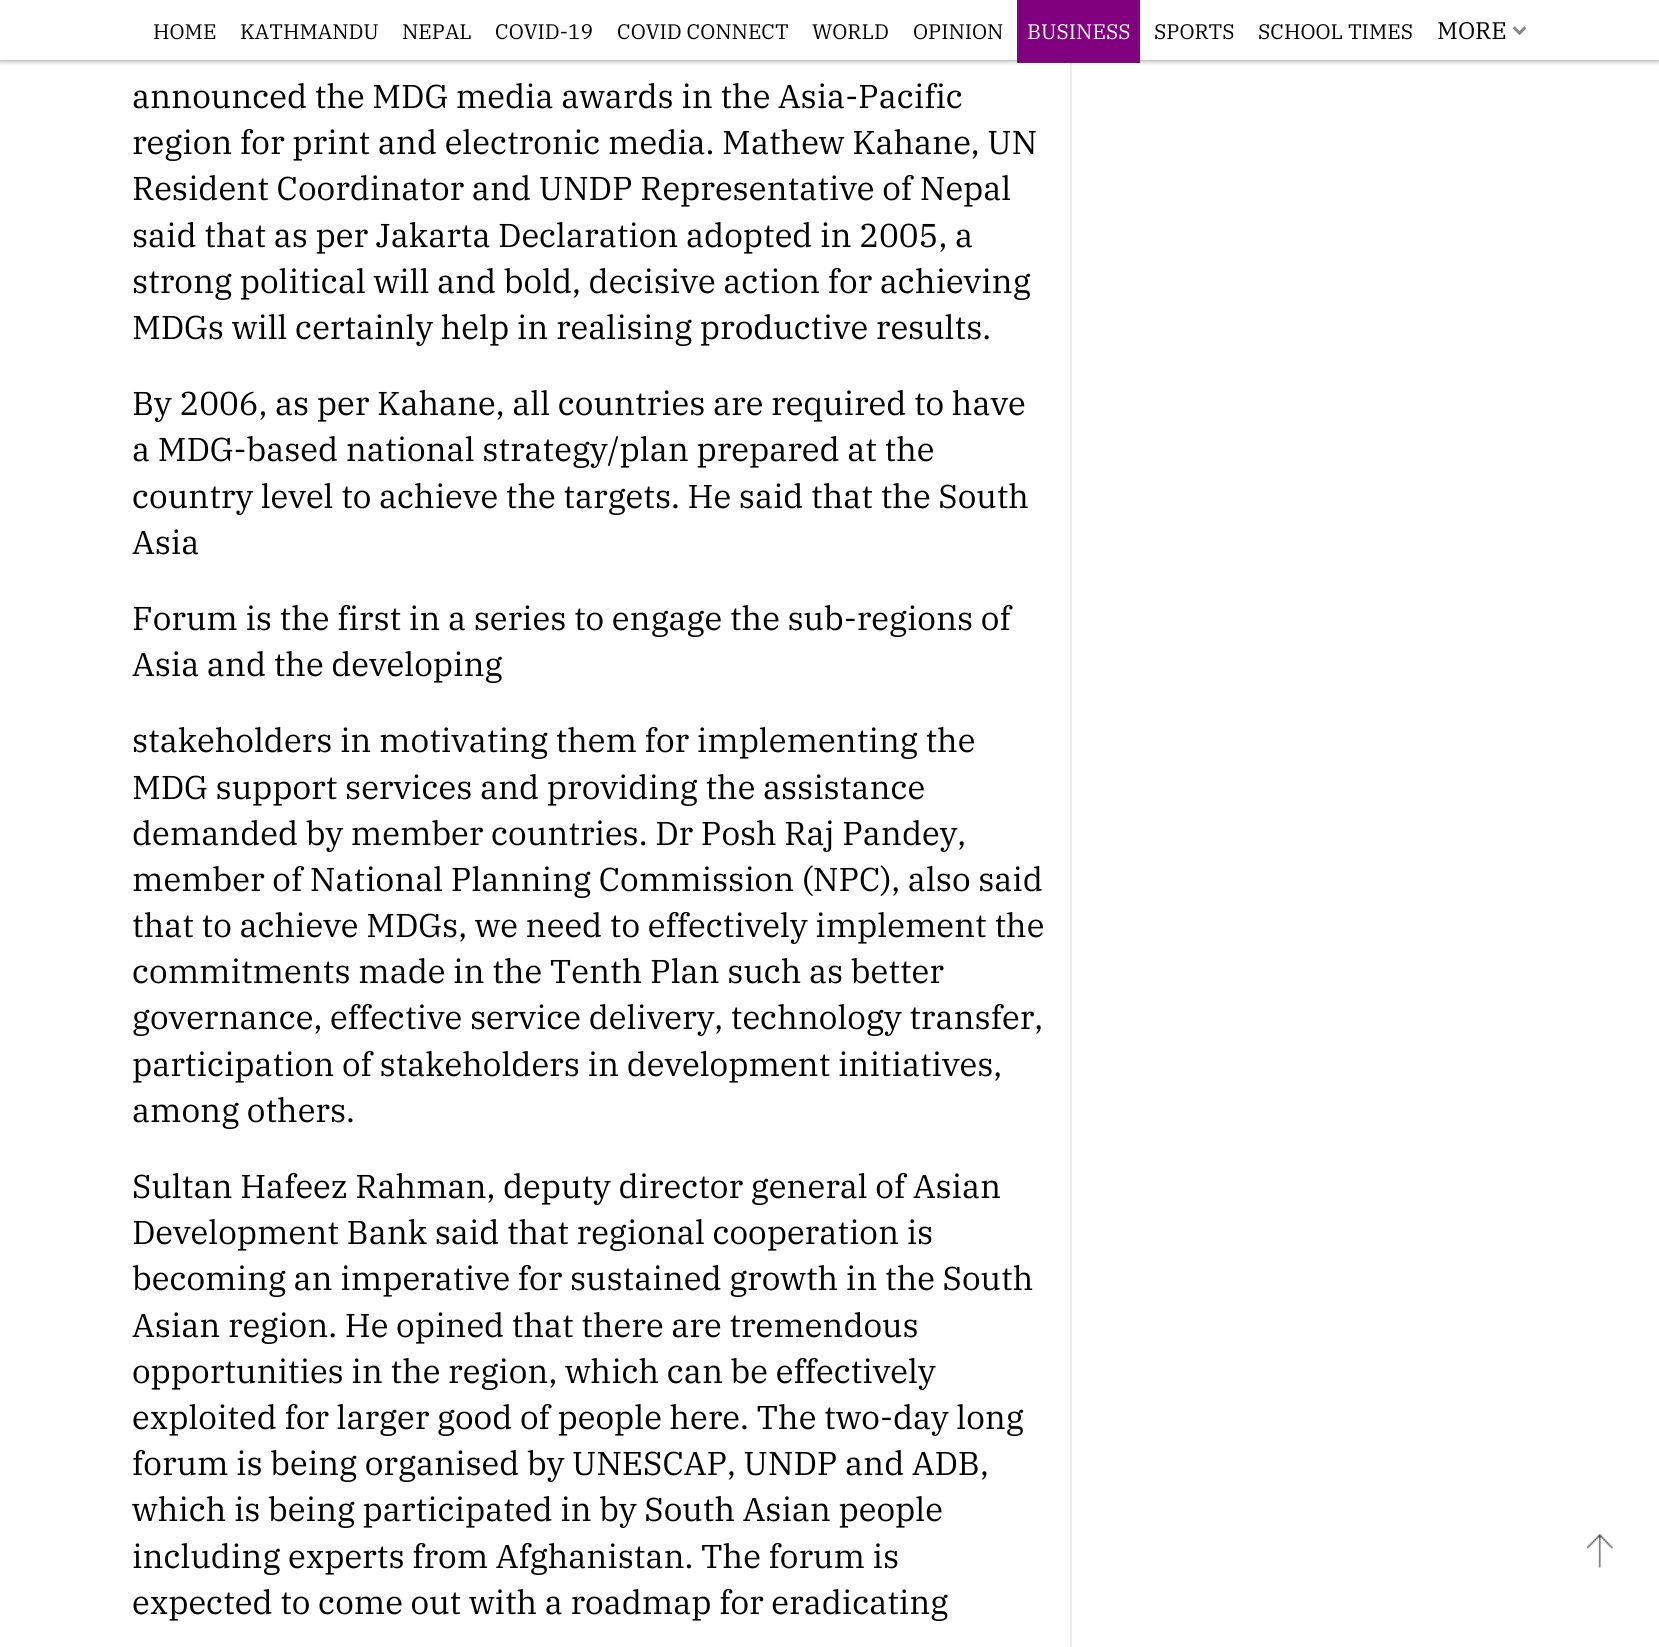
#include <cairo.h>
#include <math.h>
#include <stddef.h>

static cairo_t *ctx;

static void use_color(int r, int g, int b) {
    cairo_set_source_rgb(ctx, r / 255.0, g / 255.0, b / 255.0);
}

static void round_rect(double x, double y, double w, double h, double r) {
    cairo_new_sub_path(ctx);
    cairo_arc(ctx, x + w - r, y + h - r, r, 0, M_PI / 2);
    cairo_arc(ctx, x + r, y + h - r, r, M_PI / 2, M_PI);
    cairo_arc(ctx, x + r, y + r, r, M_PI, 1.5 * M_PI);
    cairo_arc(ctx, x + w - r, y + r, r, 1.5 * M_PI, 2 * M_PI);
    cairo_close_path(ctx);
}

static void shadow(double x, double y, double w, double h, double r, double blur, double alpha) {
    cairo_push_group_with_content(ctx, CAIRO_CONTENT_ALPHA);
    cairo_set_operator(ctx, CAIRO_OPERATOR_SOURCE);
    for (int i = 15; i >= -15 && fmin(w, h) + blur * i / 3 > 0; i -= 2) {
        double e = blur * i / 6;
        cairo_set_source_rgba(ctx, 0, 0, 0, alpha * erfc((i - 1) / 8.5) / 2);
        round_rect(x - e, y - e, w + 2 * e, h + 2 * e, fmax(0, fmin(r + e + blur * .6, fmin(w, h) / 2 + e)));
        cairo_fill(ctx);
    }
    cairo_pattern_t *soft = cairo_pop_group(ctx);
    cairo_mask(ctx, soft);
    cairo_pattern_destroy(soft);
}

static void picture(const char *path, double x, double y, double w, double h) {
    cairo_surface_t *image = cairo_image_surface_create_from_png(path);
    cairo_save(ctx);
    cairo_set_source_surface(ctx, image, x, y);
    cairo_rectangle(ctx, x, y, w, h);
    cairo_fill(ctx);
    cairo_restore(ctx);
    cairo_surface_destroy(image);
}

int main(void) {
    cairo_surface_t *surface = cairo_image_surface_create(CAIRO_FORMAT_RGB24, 1659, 1647);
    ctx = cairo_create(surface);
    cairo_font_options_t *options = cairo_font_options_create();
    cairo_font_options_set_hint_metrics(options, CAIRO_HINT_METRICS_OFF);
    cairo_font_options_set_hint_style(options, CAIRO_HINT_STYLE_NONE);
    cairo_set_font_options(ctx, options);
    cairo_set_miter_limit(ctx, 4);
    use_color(255, 255, 255);
    cairo_paint(ctx);
    use_color(238, 238, 238);
    cairo_rectangle(ctx, 1070, 63, 2, 1584);
    cairo_fill(ctx);
    use_color(0, 0, 0);
    shadow(0, 0, 1659, 60, 0, 3, 0.5);
    use_color(255, 255, 255);
    cairo_rectangle(ctx, 0, 0, 1659, 60);
    cairo_fill(ctx);
    cairo_select_font_face(ctx, "IBM Plex Serif", CAIRO_FONT_SLANT_NORMAL, CAIRO_FONT_WEIGHT_NORMAL);
    cairo_set_font_size(ctx, 21);
    use_color(0, 0, 0);
    cairo_move_to(ctx, 153, 39);
    cairo_show_text(ctx, "HOME");
    cairo_move_to(ctx, 240, 39);
    cairo_show_text(ctx, "KATHMANDU");
    cairo_move_to(ctx, 402, 39);
    cairo_show_text(ctx, "NEPAL");
    cairo_move_to(ctx, 495, 39);
    cairo_show_text(ctx, "COVID-19");
    cairo_move_to(ctx, 617, 39);
    cairo_show_text(ctx, "COVID CONNECT");
    cairo_move_to(ctx, 812, 39);
    cairo_show_text(ctx, "WORLD");
    cairo_move_to(ctx, 913, 39);
    cairo_show_text(ctx, "OPINION");
    use_color(128, 0, 128);
    cairo_rectangle(ctx, 1017, 0, 123, 63);
    cairo_fill(ctx);
    use_color(255, 255, 255);
    cairo_move_to(ctx, 1027, 39);
    cairo_show_text(ctx, "BUSINESS");
    use_color(0, 0, 0);
    cairo_move_to(ctx, 1154, 39);
    cairo_show_text(ctx, "SPORTS");
    cairo_move_to(ctx, 1258, 39);
    cairo_show_text(ctx, "SCHOOL TIMES");
    cairo_set_font_size(ctx, 24);
    cairo_move_to(ctx, 1437, 39);
    cairo_show_text(ctx, "MORE");
    picture("img1.png", 1512, 26, 15, 9);
    cairo_set_font_size(ctx, 33);
    cairo_move_to(ctx, 132, 108);
    cairo_show_text(ctx, "announced the MDG media awards in the Asia-Pacific");
    cairo_move_to(ctx, 132, 154);
    cairo_show_text(ctx, "region for print and electronic media. Mathew Kahane, UN");
    cairo_move_to(ctx, 132, 200);
    cairo_show_text(ctx, "Resident Coordinator and UNDP Representative of Nepal");
    cairo_move_to(ctx, 132, 247);
    cairo_show_text(ctx, "said that as per Jakarta Declaration adopted in 2005, a");
    cairo_move_to(ctx, 132, 293);
    cairo_show_text(ctx, "strong political will and bold, decisive action for achieving");
    cairo_move_to(ctx, 132, 339);
    cairo_show_text(ctx, "MDGs will certainly help in realising productive results.");
    cairo_move_to(ctx, 132, 415);
    cairo_show_text(ctx, "By 2006, as per Kahane, all countries are required to have");
    cairo_move_to(ctx, 132, 461);
    cairo_show_text(ctx, "a MDG-based national strategy/plan prepared at the");
    cairo_move_to(ctx, 132, 508);
    cairo_show_text(ctx, "country level to achieve the targets. He said that the South");
    cairo_move_to(ctx, 132, 554);
    cairo_show_text(ctx, "Asia");
    cairo_move_to(ctx, 132, 630);
    cairo_show_text(ctx, "Forum is the first in a series to engage the sub-regions of");
    cairo_move_to(ctx, 132, 676);
    cairo_show_text(ctx, "Asia and the developing");
    cairo_move_to(ctx, 132, 752);
    cairo_show_text(ctx, "stakeholders in motivating them for implementing the");
    cairo_move_to(ctx, 132, 799);
    cairo_show_text(ctx, "MDG support services and providing the assistance");
    cairo_move_to(ctx, 132, 845);
    cairo_show_text(ctx, "demanded by member countries. Dr Posh Raj Pandey,");
    cairo_move_to(ctx, 132, 891);
    cairo_show_text(ctx, "member of National Planning Commission (NPC), also said");
    cairo_move_to(ctx, 132, 937);
    cairo_show_text(ctx, "that to achieve MDGs, we need to effectively implement the");
    cairo_move_to(ctx, 132, 983);
    cairo_show_text(ctx, "commitments made in the Tenth Plan such as better");
    cairo_move_to(ctx, 132, 1029);
    cairo_show_text(ctx, "governance, effective service delivery, technology transfer,");
    cairo_move_to(ctx, 132, 1076);
    cairo_show_text(ctx, "participation of stakeholders in development initiatives,");
    cairo_move_to(ctx, 132, 1122);
    cairo_show_text(ctx, "among others.");
    cairo_move_to(ctx, 132, 1198);
    cairo_show_text(ctx, "Sultan Hafeez Rahman, deputy director general of Asian");
    cairo_move_to(ctx, 132, 1244);
    cairo_show_text(ctx, "Development Bank said that regional cooperation is");
    cairo_move_to(ctx, 132, 1290);
    cairo_show_text(ctx, "becoming an imperative for sustained growth in the South");
    cairo_move_to(ctx, 132, 1337);
    cairo_show_text(ctx, "Asian region. He opined that there are tremendous");
    cairo_move_to(ctx, 132, 1383);
    cairo_show_text(ctx, "opportunities in the region, which can be effectively");
    cairo_move_to(ctx, 132, 1429);
    cairo_show_text(ctx, "exploited for larger good of people here. The two-day long");
    cairo_move_to(ctx, 132, 1475);
    cairo_show_text(ctx, "forum is being organised by UNESCAP, UNDP and ADB,");
    cairo_move_to(ctx, 132, 1521);
    cairo_show_text(ctx, "which is being participated in by South Asian people");
    cairo_move_to(ctx, 132, 1568);
    cairo_show_text(ctx, "including experts from Afghanistan. The forum is");
    cairo_move_to(ctx, 132, 1614);
    cairo_show_text(ctx, "expected to come out with a roadmap for eradicating");
    picture("img2.png", 1586, 1534, 27, 34);
    cairo_surface_write_to_png(surface, "result.png");
    cairo_font_options_destroy(options);
    cairo_destroy(ctx);
    cairo_surface_destroy(surface);
    return 0;
}
